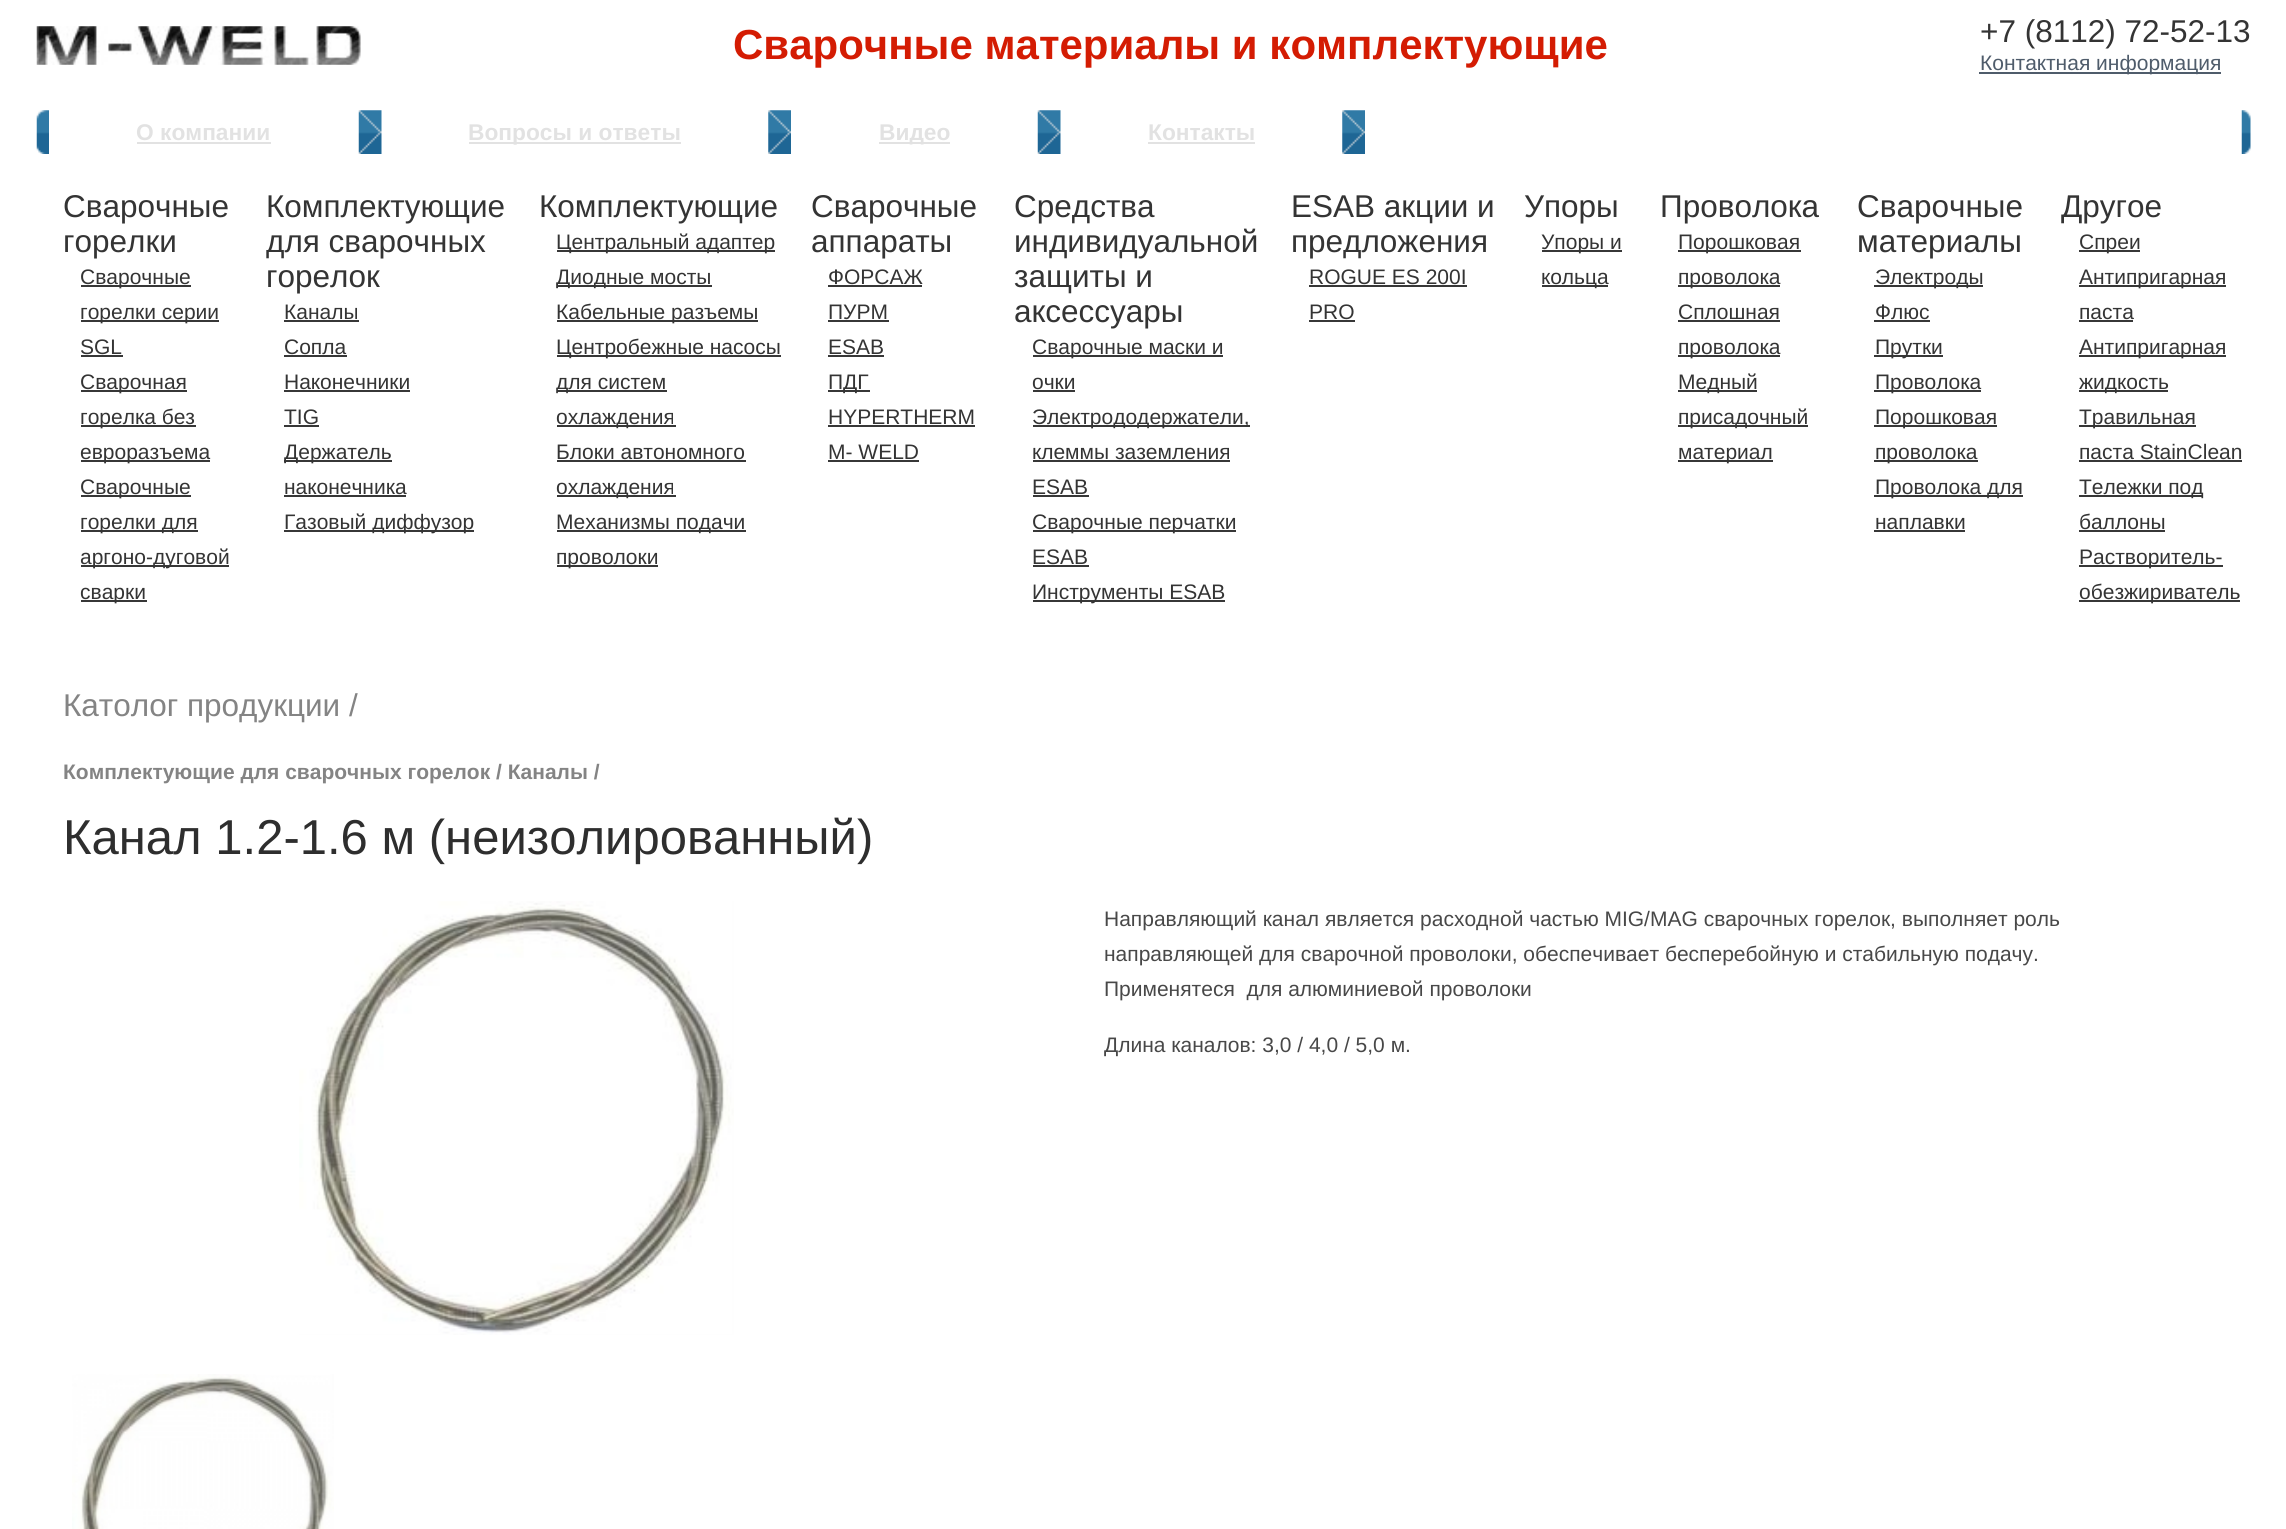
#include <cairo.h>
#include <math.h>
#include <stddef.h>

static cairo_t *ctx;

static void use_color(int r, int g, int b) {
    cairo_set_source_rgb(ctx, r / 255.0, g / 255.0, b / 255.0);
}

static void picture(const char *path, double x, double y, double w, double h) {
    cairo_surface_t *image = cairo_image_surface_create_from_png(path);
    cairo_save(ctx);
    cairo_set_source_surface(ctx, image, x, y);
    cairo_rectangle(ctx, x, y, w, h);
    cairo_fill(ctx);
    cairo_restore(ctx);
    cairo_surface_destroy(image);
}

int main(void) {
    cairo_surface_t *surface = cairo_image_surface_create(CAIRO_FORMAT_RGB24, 2286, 1529);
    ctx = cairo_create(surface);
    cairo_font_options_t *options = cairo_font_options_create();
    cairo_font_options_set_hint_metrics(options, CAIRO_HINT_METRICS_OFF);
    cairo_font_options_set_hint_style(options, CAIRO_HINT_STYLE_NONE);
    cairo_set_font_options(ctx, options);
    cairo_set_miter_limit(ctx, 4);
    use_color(255, 255, 255);
    cairo_paint(ctx);
    picture("img1.png", 36, 26, 325, 39);
    cairo_select_font_face(ctx, "Liberation Sans", CAIRO_FONT_SLANT_NORMAL, CAIRO_FONT_WEIGHT_BOLD);
    cairo_set_font_size(ctx, 42);
    use_color(212, 28, 3);
    cairo_move_to(ctx, 733, 59);
    cairo_show_text(ctx, "Сварочные материалы и комплектующие");
    cairo_select_font_face(ctx, "Liberation Sans", CAIRO_FONT_SLANT_NORMAL, CAIRO_FONT_WEIGHT_NORMAL);
    cairo_set_font_size(ctx, 31.5);
    use_color(52, 52, 52);
    cairo_move_to(ctx, 1980, 42);
    cairo_show_text(ctx, "+7 (8112) 72-52-13");
    use_color(79, 92, 107);
    cairo_rectangle(ctx, 1979, 72, 242, 2);
    cairo_fill(ctx);
    cairo_set_font_size(ctx, 21);
    cairo_move_to(ctx, 1980, 70);
    cairo_show_text(ctx, "Контактная информация");
    picture("img2.png", 36, 110, 13, 44);
    cairo_select_font_face(ctx, "Liberation Sans", CAIRO_FONT_SLANT_NORMAL, CAIRO_FONT_WEIGHT_BOLD);
    cairo_set_font_size(ctx, 22.75);
    use_color(226, 226, 226);
    cairo_move_to(ctx, 136, 140);
    cairo_show_text(ctx, "О компании");
    cairo_rectangle(ctx, 137, 142, 134, 2);
    cairo_fill(ctx);
    picture("img3.png", 358, 110, 24, 44);
    cairo_rectangle(ctx, 469, 142, 212, 2);
    cairo_fill(ctx);
    cairo_move_to(ctx, 468, 140);
    cairo_show_text(ctx, "Вопросы и ответы");
    picture("img4.png", 768, 110, 23, 44);
    cairo_rectangle(ctx, 879, 142, 71, 2);
    cairo_fill(ctx);
    cairo_move_to(ctx, 879, 140);
    cairo_show_text(ctx, "Видео");
    picture("img5.png", 1037, 110, 24, 44);
    cairo_move_to(ctx, 1148, 140);
    cairo_show_text(ctx, "Контакты");
    cairo_rectangle(ctx, 1148, 142, 107, 2);
    cairo_fill(ctx);
    picture("img6.png", 1342, 110, 23, 44);
    picture("img7.png", 2241, 110, 10, 44);
    cairo_select_font_face(ctx, "Liberation Sans", CAIRO_FONT_SLANT_NORMAL, CAIRO_FONT_WEIGHT_NORMAL);
    cairo_set_font_size(ctx, 31.5);
    use_color(52, 52, 52);
    cairo_move_to(ctx, 63, 217);
    cairo_show_text(ctx, "Сварочные");
    cairo_move_to(ctx, 63, 252);
    cairo_show_text(ctx, "горелки");
    use_color(55, 55, 55);
    cairo_rectangle(ctx, 81, 285, 110, 2);
    cairo_fill(ctx);
    cairo_set_font_size(ctx, 21);
    use_color(52, 52, 52);
    cairo_move_to(ctx, 80, 284);
    cairo_show_text(ctx, "Сварочные");
    use_color(55, 55, 55);
    cairo_rectangle(ctx, 81, 320, 138, 2);
    cairo_fill(ctx);
    use_color(52, 52, 52);
    cairo_move_to(ctx, 80, 319);
    cairo_show_text(ctx, "горелки серии");
    cairo_move_to(ctx, 80, 354);
    cairo_show_text(ctx, "SGL");
    use_color(55, 55, 55);
    cairo_rectangle(ctx, 81, 355, 42, 2);
    cairo_fill(ctx);
    cairo_rectangle(ctx, 81, 390, 106, 2);
    cairo_fill(ctx);
    use_color(52, 52, 52);
    cairo_move_to(ctx, 80, 389);
    cairo_show_text(ctx, "Сварочная");
    use_color(55, 55, 55);
    cairo_rectangle(ctx, 81, 425, 115, 2);
    cairo_fill(ctx);
    use_color(52, 52, 52);
    cairo_move_to(ctx, 80, 424);
    cairo_show_text(ctx, "горелка без");
    use_color(55, 55, 55);
    cairo_rectangle(ctx, 81, 460, 129, 2);
    cairo_fill(ctx);
    use_color(52, 52, 52);
    cairo_move_to(ctx, 80, 459);
    cairo_show_text(ctx, "евроразъема");
    use_color(55, 55, 55);
    cairo_rectangle(ctx, 81, 495, 110, 2);
    cairo_fill(ctx);
    use_color(52, 52, 52);
    cairo_move_to(ctx, 80, 494);
    cairo_show_text(ctx, "Сварочные");
    use_color(55, 55, 55);
    cairo_rectangle(ctx, 81, 530, 117, 2);
    cairo_fill(ctx);
    use_color(52, 52, 52);
    cairo_move_to(ctx, 80, 529);
    cairo_show_text(ctx, "горелки для");
    use_color(55, 55, 55);
    cairo_rectangle(ctx, 81, 565, 148, 2);
    cairo_fill(ctx);
    use_color(52, 52, 52);
    cairo_move_to(ctx, 80, 564);
    cairo_show_text(ctx, "аргоно-дуговой");
    use_color(55, 55, 55);
    cairo_rectangle(ctx, 81, 600, 66, 2);
    cairo_fill(ctx);
    use_color(52, 52, 52);
    cairo_move_to(ctx, 80, 599);
    cairo_show_text(ctx, "сварки");
    cairo_set_font_size(ctx, 31.5);
    cairo_move_to(ctx, 266, 217);
    cairo_show_text(ctx, "Комплектующие");
    cairo_move_to(ctx, 266, 252);
    cairo_show_text(ctx, "для сварочных");
    cairo_move_to(ctx, 266, 287);
    cairo_show_text(ctx, "горелок");
    cairo_set_font_size(ctx, 21);
    cairo_move_to(ctx, 284, 319);
    cairo_show_text(ctx, "Каналы");
    use_color(55, 55, 55);
    cairo_rectangle(ctx, 284, 320, 75, 2);
    cairo_fill(ctx);
    use_color(52, 52, 52);
    cairo_move_to(ctx, 284, 354);
    cairo_show_text(ctx, "Сопла");
    use_color(55, 55, 55);
    cairo_rectangle(ctx, 284, 355, 63, 2);
    cairo_fill(ctx);
    use_color(52, 52, 52);
    cairo_move_to(ctx, 284, 389);
    cairo_show_text(ctx, "Наконечники");
    use_color(55, 55, 55);
    cairo_rectangle(ctx, 284, 390, 126, 2);
    cairo_fill(ctx);
    use_color(52, 52, 52);
    cairo_move_to(ctx, 284, 424);
    cairo_show_text(ctx, "TIG");
    use_color(55, 55, 55);
    cairo_rectangle(ctx, 284, 425, 35, 2);
    cairo_fill(ctx);
    cairo_rectangle(ctx, 284, 460, 108, 2);
    cairo_fill(ctx);
    use_color(52, 52, 52);
    cairo_move_to(ctx, 284, 459);
    cairo_show_text(ctx, "Держатель");
    cairo_move_to(ctx, 284, 494);
    cairo_show_text(ctx, "наконечника");
    use_color(55, 55, 55);
    cairo_rectangle(ctx, 284, 495, 122, 2);
    cairo_fill(ctx);
    cairo_rectangle(ctx, 284, 530, 190, 2);
    cairo_fill(ctx);
    use_color(52, 52, 52);
    cairo_move_to(ctx, 284, 529);
    cairo_show_text(ctx, "Газовый диффузор");
    cairo_set_font_size(ctx, 31.5);
    cairo_move_to(ctx, 539, 217);
    cairo_show_text(ctx, "Комплектующие");
    use_color(55, 55, 55);
    cairo_rectangle(ctx, 557, 250, 218, 2);
    cairo_fill(ctx);
    cairo_set_font_size(ctx, 21);
    use_color(52, 52, 52);
    cairo_move_to(ctx, 556, 249);
    cairo_show_text(ctx, "Центральный адаптер");
    use_color(55, 55, 55);
    cairo_rectangle(ctx, 557, 285, 155, 2);
    cairo_fill(ctx);
    use_color(52, 52, 52);
    cairo_move_to(ctx, 556, 284);
    cairo_show_text(ctx, "Диодные мосты");
    use_color(55, 55, 55);
    cairo_rectangle(ctx, 557, 320, 201, 2);
    cairo_fill(ctx);
    use_color(52, 52, 52);
    cairo_move_to(ctx, 556, 319);
    cairo_show_text(ctx, "Кабельные разъемы");
    use_color(55, 55, 55);
    cairo_rectangle(ctx, 557, 355, 224, 2);
    cairo_fill(ctx);
    use_color(52, 52, 52);
    cairo_move_to(ctx, 556, 354);
    cairo_show_text(ctx, "Центробежные насосы");
    use_color(55, 55, 55);
    cairo_rectangle(ctx, 557, 390, 110, 2);
    cairo_fill(ctx);
    use_color(52, 52, 52);
    cairo_move_to(ctx, 556, 389);
    cairo_show_text(ctx, "для систем");
    use_color(55, 55, 55);
    cairo_rectangle(ctx, 557, 425, 119, 2);
    cairo_fill(ctx);
    use_color(52, 52, 52);
    cairo_move_to(ctx, 556, 424);
    cairo_show_text(ctx, "охлаждения");
    cairo_move_to(ctx, 556, 459);
    cairo_show_text(ctx, "Блоки автономного");
    use_color(55, 55, 55);
    cairo_rectangle(ctx, 557, 460, 189, 2);
    cairo_fill(ctx);
    cairo_rectangle(ctx, 557, 495, 119, 2);
    cairo_fill(ctx);
    use_color(52, 52, 52);
    cairo_move_to(ctx, 556, 494);
    cairo_show_text(ctx, "охлаждения");
    use_color(55, 55, 55);
    cairo_rectangle(ctx, 557, 530, 189, 2);
    cairo_fill(ctx);
    use_color(52, 52, 52);
    cairo_move_to(ctx, 556, 529);
    cairo_show_text(ctx, "Механизмы подачи");
    use_color(55, 55, 55);
    cairo_rectangle(ctx, 557, 565, 101, 2);
    cairo_fill(ctx);
    use_color(52, 52, 52);
    cairo_move_to(ctx, 556, 564);
    cairo_show_text(ctx, "проволоки");
    cairo_set_font_size(ctx, 31.5);
    cairo_move_to(ctx, 811, 217);
    cairo_show_text(ctx, "Сварочные");
    cairo_move_to(ctx, 811, 252);
    cairo_show_text(ctx, "аппараты");
    cairo_set_font_size(ctx, 21);
    cairo_move_to(ctx, 828, 284);
    cairo_show_text(ctx, "ФОРСАЖ");
    use_color(55, 55, 55);
    cairo_rectangle(ctx, 828, 285, 94, 2);
    cairo_fill(ctx);
    use_color(52, 52, 52);
    cairo_move_to(ctx, 828, 319);
    cairo_show_text(ctx, "ПУРМ");
    use_color(55, 55, 55);
    cairo_rectangle(ctx, 828, 320, 61, 2);
    cairo_fill(ctx);
    use_color(52, 52, 52);
    cairo_move_to(ctx, 828, 354);
    cairo_show_text(ctx, "ESAB");
    use_color(55, 55, 55);
    cairo_rectangle(ctx, 828, 355, 56, 2);
    cairo_fill(ctx);
    cairo_rectangle(ctx, 828, 390, 42, 2);
    cairo_fill(ctx);
    use_color(52, 52, 52);
    cairo_move_to(ctx, 828, 389);
    cairo_show_text(ctx, "ПДГ");
    cairo_move_to(ctx, 828, 424);
    cairo_show_text(ctx, "HYPERTHERM");
    use_color(55, 55, 55);
    cairo_rectangle(ctx, 828, 425, 147, 2);
    cairo_fill(ctx);
    use_color(52, 52, 52);
    cairo_move_to(ctx, 828, 459);
    cairo_show_text(ctx, "M- WELD");
    use_color(55, 55, 55);
    cairo_rectangle(ctx, 828, 460, 91, 2);
    cairo_fill(ctx);
    cairo_set_font_size(ctx, 31.5);
    use_color(52, 52, 52);
    cairo_move_to(ctx, 1014, 217);
    cairo_show_text(ctx, "Cредства");
    cairo_move_to(ctx, 1014, 252);
    cairo_show_text(ctx, "индивидуальной");
    cairo_move_to(ctx, 1014, 287);
    cairo_show_text(ctx, "защиты и");
    cairo_move_to(ctx, 1014, 322);
    cairo_show_text(ctx, "аксессуары");
    use_color(55, 55, 55);
    cairo_rectangle(ctx, 1033, 355, 190, 2);
    cairo_fill(ctx);
    cairo_set_font_size(ctx, 21);
    use_color(52, 52, 52);
    cairo_move_to(ctx, 1032, 354);
    cairo_show_text(ctx, "Сварочные маски и");
    cairo_move_to(ctx, 1032, 389);
    cairo_show_text(ctx, "очки");
    use_color(55, 55, 55);
    cairo_rectangle(ctx, 1033, 390, 42, 2);
    cairo_fill(ctx);
    cairo_rectangle(ctx, 1033, 425, 217, 2);
    cairo_fill(ctx);
    use_color(52, 52, 52);
    cairo_move_to(ctx, 1032, 424);
    cairo_show_text(ctx, "Электрододержатели,");
    cairo_move_to(ctx, 1032, 459);
    cairo_show_text(ctx, "клеммы заземления");
    use_color(55, 55, 55);
    cairo_rectangle(ctx, 1033, 460, 197, 2);
    cairo_fill(ctx);
    use_color(52, 52, 52);
    cairo_move_to(ctx, 1032, 494);
    cairo_show_text(ctx, "ESAB");
    use_color(55, 55, 55);
    cairo_rectangle(ctx, 1033, 495, 56, 2);
    cairo_fill(ctx);
    cairo_rectangle(ctx, 1033, 530, 203, 2);
    cairo_fill(ctx);
    use_color(52, 52, 52);
    cairo_move_to(ctx, 1032, 529);
    cairo_show_text(ctx, "Сварочные перчатки");
    cairo_move_to(ctx, 1032, 564);
    cairo_show_text(ctx, "ESAB");
    use_color(55, 55, 55);
    cairo_rectangle(ctx, 1033, 565, 56, 2);
    cairo_fill(ctx);
    cairo_rectangle(ctx, 1033, 600, 192, 2);
    cairo_fill(ctx);
    use_color(52, 52, 52);
    cairo_move_to(ctx, 1032, 599);
    cairo_show_text(ctx, "Инструменты ESAB");
    cairo_set_font_size(ctx, 31.5);
    cairo_move_to(ctx, 1291, 217);
    cairo_show_text(ctx, "ESAB акции и");
    cairo_move_to(ctx, 1291, 252);
    cairo_show_text(ctx, "предложения");
    cairo_set_font_size(ctx, 21);
    cairo_move_to(ctx, 1309, 284);
    cairo_show_text(ctx, "ROGUE ES 200I");
    use_color(55, 55, 55);
    cairo_rectangle(ctx, 1309, 285, 158, 2);
    cairo_fill(ctx);
    use_color(52, 52, 52);
    cairo_move_to(ctx, 1309, 319);
    cairo_show_text(ctx, "PRO");
    use_color(55, 55, 55);
    cairo_rectangle(ctx, 1309, 320, 46, 2);
    cairo_fill(ctx);
    cairo_set_font_size(ctx, 31.5);
    use_color(52, 52, 52);
    cairo_move_to(ctx, 1524, 217);
    cairo_show_text(ctx, "Упоры");
    use_color(55, 55, 55);
    cairo_rectangle(ctx, 1542, 250, 80, 2);
    cairo_fill(ctx);
    cairo_set_font_size(ctx, 21);
    use_color(52, 52, 52);
    cairo_move_to(ctx, 1541, 249);
    cairo_show_text(ctx, "Упоры и");
    use_color(55, 55, 55);
    cairo_rectangle(ctx, 1542, 285, 66, 2);
    cairo_fill(ctx);
    use_color(52, 52, 52);
    cairo_move_to(ctx, 1541, 284);
    cairo_show_text(ctx, "кольца");
    cairo_set_font_size(ctx, 31.5);
    cairo_move_to(ctx, 1660, 217);
    cairo_show_text(ctx, "Проволока");
    use_color(55, 55, 55);
    cairo_rectangle(ctx, 1678, 250, 123, 2);
    cairo_fill(ctx);
    cairo_set_font_size(ctx, 21);
    use_color(52, 52, 52);
    cairo_move_to(ctx, 1678, 249);
    cairo_show_text(ctx, "Порошковая");
    use_color(55, 55, 55);
    cairo_rectangle(ctx, 1678, 285, 102, 2);
    cairo_fill(ctx);
    use_color(52, 52, 52);
    cairo_move_to(ctx, 1678, 284);
    cairo_show_text(ctx, "проволока");
    cairo_move_to(ctx, 1678, 319);
    cairo_show_text(ctx, "Сплошная");
    use_color(55, 55, 55);
    cairo_rectangle(ctx, 1678, 320, 102, 2);
    cairo_fill(ctx);
    cairo_rectangle(ctx, 1678, 355, 102, 2);
    cairo_fill(ctx);
    use_color(52, 52, 52);
    cairo_move_to(ctx, 1678, 354);
    cairo_show_text(ctx, "проволока");
    use_color(55, 55, 55);
    cairo_rectangle(ctx, 1678, 390, 79, 2);
    cairo_fill(ctx);
    use_color(52, 52, 52);
    cairo_move_to(ctx, 1678, 389);
    cairo_show_text(ctx, "Медный");
    use_color(55, 55, 55);
    cairo_rectangle(ctx, 1678, 425, 130, 2);
    cairo_fill(ctx);
    use_color(52, 52, 52);
    cairo_move_to(ctx, 1678, 424);
    cairo_show_text(ctx, "присадочный");
    use_color(55, 55, 55);
    cairo_rectangle(ctx, 1678, 460, 95, 2);
    cairo_fill(ctx);
    use_color(52, 52, 52);
    cairo_move_to(ctx, 1678, 459);
    cairo_show_text(ctx, "материал");
    cairo_set_font_size(ctx, 31.5);
    cairo_move_to(ctx, 1857, 217);
    cairo_show_text(ctx, "Сварочные");
    cairo_move_to(ctx, 1857, 252);
    cairo_show_text(ctx, "материалы");
    use_color(55, 55, 55);
    cairo_rectangle(ctx, 1874, 285, 109, 2);
    cairo_fill(ctx);
    cairo_set_font_size(ctx, 21);
    use_color(52, 52, 52);
    cairo_move_to(ctx, 1875, 284);
    cairo_show_text(ctx, "Электроды");
    cairo_move_to(ctx, 1875, 319);
    cairo_show_text(ctx, "Флюс");
    use_color(55, 55, 55);
    cairo_rectangle(ctx, 1874, 320, 56, 2);
    cairo_fill(ctx);
    cairo_rectangle(ctx, 1874, 355, 69, 2);
    cairo_fill(ctx);
    use_color(52, 52, 52);
    cairo_move_to(ctx, 1875, 354);
    cairo_show_text(ctx, "Прутки");
    use_color(55, 55, 55);
    cairo_rectangle(ctx, 1874, 390, 107, 2);
    cairo_fill(ctx);
    use_color(52, 52, 52);
    cairo_move_to(ctx, 1875, 389);
    cairo_show_text(ctx, "Проволока");
    use_color(55, 55, 55);
    cairo_rectangle(ctx, 1874, 425, 123, 2);
    cairo_fill(ctx);
    use_color(52, 52, 52);
    cairo_move_to(ctx, 1875, 424);
    cairo_show_text(ctx, "Порошковая");
    use_color(55, 55, 55);
    cairo_rectangle(ctx, 1874, 460, 104, 2);
    cairo_fill(ctx);
    use_color(52, 52, 52);
    cairo_move_to(ctx, 1875, 459);
    cairo_show_text(ctx, "проволока");
    use_color(55, 55, 55);
    cairo_rectangle(ctx, 1874, 495, 149, 2);
    cairo_fill(ctx);
    use_color(52, 52, 52);
    cairo_move_to(ctx, 1875, 494);
    cairo_show_text(ctx, "Проволока для");
    cairo_move_to(ctx, 1875, 529);
    cairo_show_text(ctx, "наплавки");
    use_color(55, 55, 55);
    cairo_rectangle(ctx, 1874, 530, 91, 2);
    cairo_fill(ctx);
    cairo_set_font_size(ctx, 31.5);
    use_color(52, 52, 52);
    cairo_move_to(ctx, 2061, 217);
    cairo_show_text(ctx, "Другое");
    use_color(55, 55, 55);
    cairo_rectangle(ctx, 2079, 250, 61, 2);
    cairo_fill(ctx);
    cairo_set_font_size(ctx, 21);
    use_color(52, 52, 52);
    cairo_move_to(ctx, 2079, 249);
    cairo_show_text(ctx, "Спреи");
    use_color(55, 55, 55);
    cairo_rectangle(ctx, 2079, 285, 147, 2);
    cairo_fill(ctx);
    use_color(52, 52, 52);
    cairo_move_to(ctx, 2079, 284);
    cairo_show_text(ctx, "Антипригарная");
    cairo_move_to(ctx, 2079, 319);
    cairo_show_text(ctx, "паста");
    use_color(55, 55, 55);
    cairo_rectangle(ctx, 2079, 320, 54, 2);
    cairo_fill(ctx);
    cairo_rectangle(ctx, 2079, 355, 147, 2);
    cairo_fill(ctx);
    use_color(52, 52, 52);
    cairo_move_to(ctx, 2079, 354);
    cairo_show_text(ctx, "Антипригарная");
    use_color(55, 55, 55);
    cairo_rectangle(ctx, 2079, 390, 89, 2);
    cairo_fill(ctx);
    use_color(52, 52, 52);
    cairo_move_to(ctx, 2079, 389);
    cairo_show_text(ctx, "жидкость");
    use_color(55, 55, 55);
    cairo_rectangle(ctx, 2079, 425, 117, 2);
    cairo_fill(ctx);
    use_color(52, 52, 52);
    cairo_move_to(ctx, 2079, 424);
    cairo_show_text(ctx, "Травильная");
    cairo_move_to(ctx, 2079, 459);
    cairo_show_text(ctx, "паста StainClean");
    use_color(55, 55, 55);
    cairo_rectangle(ctx, 2079, 460, 163, 2);
    cairo_fill(ctx);
    cairo_rectangle(ctx, 2079, 495, 124, 2);
    cairo_fill(ctx);
    use_color(52, 52, 52);
    cairo_move_to(ctx, 2079, 494);
    cairo_show_text(ctx, "Тележки под");
    cairo_move_to(ctx, 2079, 529);
    cairo_show_text(ctx, "баллоны");
    use_color(55, 55, 55);
    cairo_rectangle(ctx, 2079, 530, 86, 2);
    cairo_fill(ctx);
    cairo_rectangle(ctx, 2079, 565, 144, 2);
    cairo_fill(ctx);
    use_color(52, 52, 52);
    cairo_move_to(ctx, 2079, 564);
    cairo_show_text(ctx, "Растворитель-");
    use_color(55, 55, 55);
    cairo_rectangle(ctx, 2079, 600, 161, 2);
    cairo_fill(ctx);
    use_color(52, 52, 52);
    cairo_move_to(ctx, 2079, 599);
    cairo_show_text(ctx, "обезжириватель");
    cairo_set_font_size(ctx, 31.5);
    use_color(132, 132, 132);
    cairo_move_to(ctx, 63, 716);
    cairo_show_text(ctx, "Католог продукции /");
    cairo_select_font_face(ctx, "Liberation Sans", CAIRO_FONT_SLANT_NORMAL, CAIRO_FONT_WEIGHT_BOLD);
    cairo_set_font_size(ctx, 21);
    cairo_move_to(ctx, 63, 779);
    cairo_show_text(ctx, "Комплектующие для сварочных горелок / Каналы /");
    cairo_select_font_face(ctx, "Liberation Sans", CAIRO_FONT_SLANT_NORMAL, CAIRO_FONT_WEIGHT_NORMAL);
    cairo_set_font_size(ctx, 49);
    use_color(46, 46, 46);
    cairo_move_to(ctx, 63, 854);
    cairo_show_text(ctx, "Канал 1.2-1.6 м (неизолированный)");
    picture("img8.png", 299, 901, 435, 434);
    picture("img9.png", 72, 1374, 262, 155);
    cairo_set_font_size(ctx, 21);
    use_color(72, 72, 72);
    cairo_move_to(ctx, 1104, 926);
    cairo_show_text(ctx, "Направляющий канал является расходной частью MIG/MAG сварочных горелок, выполняет роль");
    cairo_move_to(ctx, 1104, 961);
    cairo_show_text(ctx, "направляющей для сварочной проволоки, обеспечивает бесперебойную и стабильную подачу.");
    cairo_move_to(ctx, 1104, 996);
    cairo_show_text(ctx, "Применятеся  для алюминиевой проволоки");
    cairo_move_to(ctx, 1104, 1052);
    cairo_show_text(ctx, "Длина каналов: 3,0 / 4,0 / 5,0 м.");
    cairo_surface_write_to_png(surface, "result.png");
    cairo_font_options_destroy(options);
    cairo_destroy(ctx);
    cairo_surface_destroy(surface);
    return 0;
}
